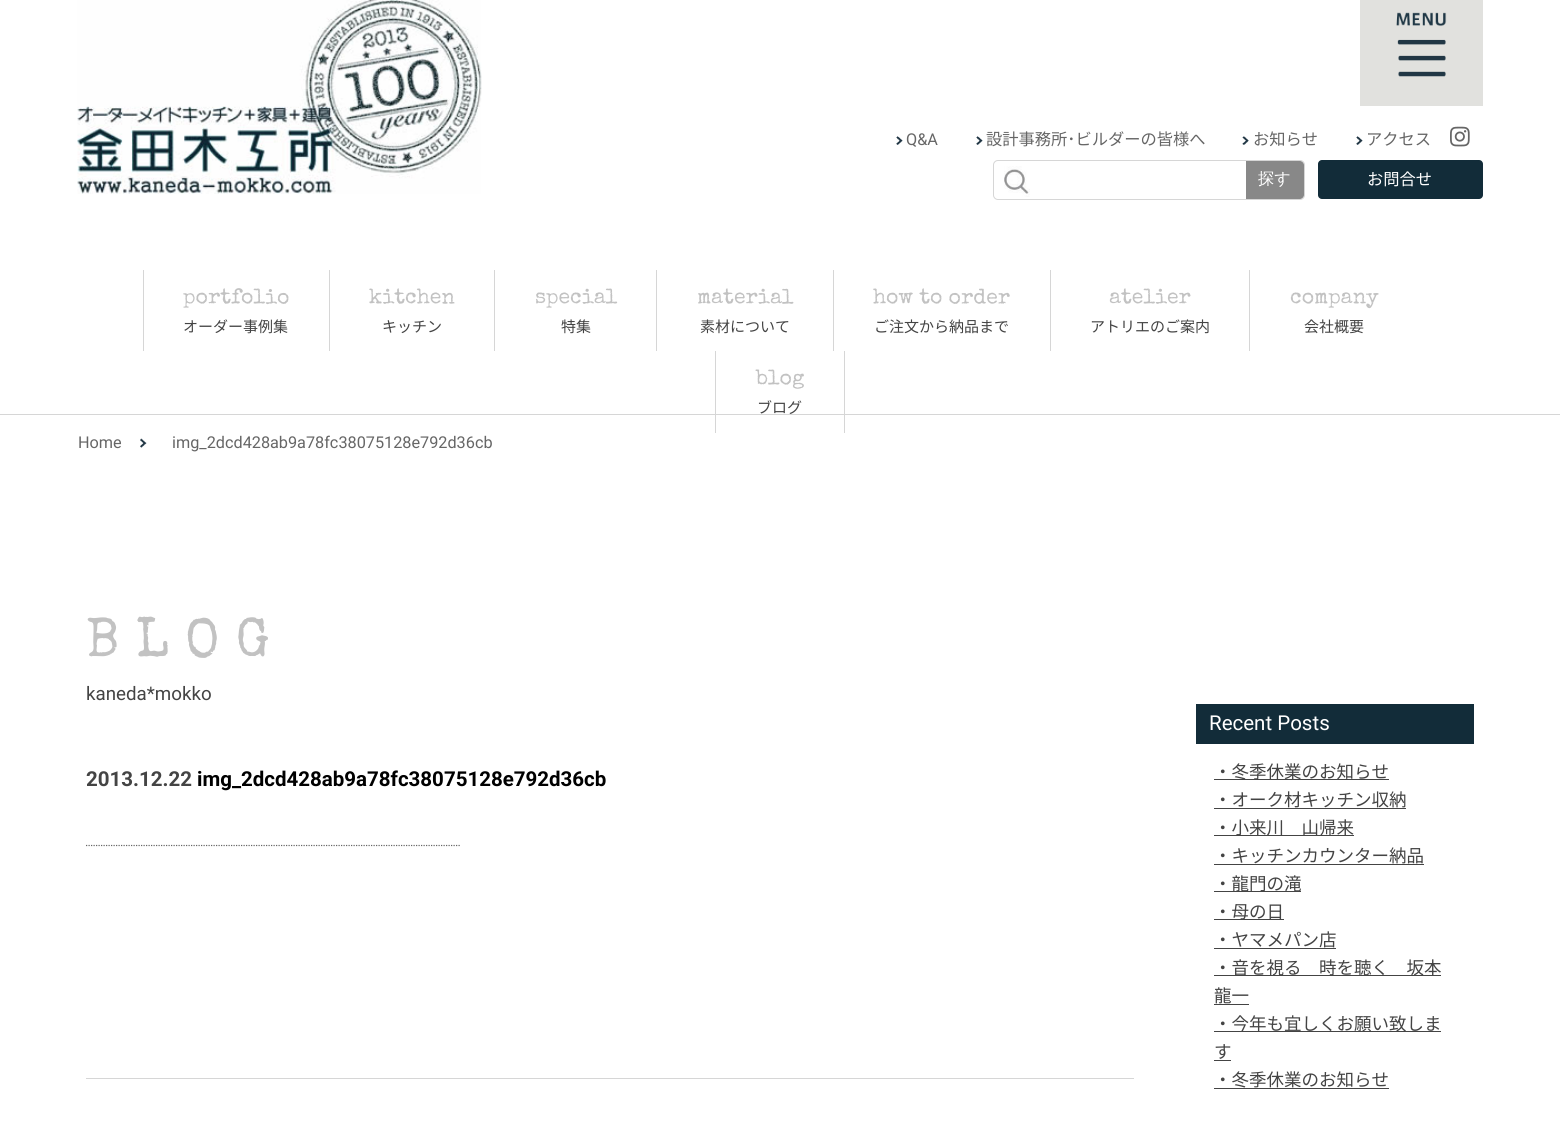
#include <cairo.h>
#include <math.h>
#include <stddef.h>

static cairo_t *ctx;

static void use_color(int r, int g, int b) {
    cairo_set_source_rgb(ctx, r / 255.0, g / 255.0, b / 255.0);
}

static void spaced_text(double x, double y, const char *s, double letter, double word) {
    cairo_move_to(ctx, x, y);
    while (*s) {
        char ch[5] = {0};
        int n = 0;
        do ch[n++] = *s++; while ((*s & 0xC0) == 0x80);
        cairo_show_text(ctx, ch);
        cairo_rel_move_to(ctx, letter + word * (*ch == ' '), 0);
    }
}

static void round_rect(double x, double y, double w, double h, double r) {
    cairo_new_sub_path(ctx);
    cairo_arc(ctx, x + w - r, y + h - r, r, 0, M_PI / 2);
    cairo_arc(ctx, x + r, y + h - r, r, M_PI / 2, M_PI);
    cairo_arc(ctx, x + r, y + r, r, M_PI, 1.5 * M_PI);
    cairo_arc(ctx, x + w - r, y + r, r, 1.5 * M_PI, 2 * M_PI);
    cairo_close_path(ctx);
}

static void picture(const char *path, double x, double y, double w, double h) {
    cairo_surface_t *image = cairo_image_surface_create_from_png(path);
    cairo_save(ctx);
    cairo_set_source_surface(ctx, image, x, y);
    cairo_rectangle(ctx, x, y, w, h);
    cairo_fill(ctx);
    cairo_restore(ctx);
    cairo_surface_destroy(image);
}

int main(void) {
    cairo_surface_t *surface = cairo_image_surface_create(CAIRO_FORMAT_RGB24, 1560, 1145);
    ctx = cairo_create(surface);
    cairo_font_options_t *options = cairo_font_options_create();
    cairo_font_options_set_hint_metrics(options, CAIRO_HINT_METRICS_OFF);
    cairo_font_options_set_hint_style(options, CAIRO_HINT_STYLE_NONE);
    cairo_set_font_options(ctx, options);
    cairo_set_miter_limit(ctx, 4);
    use_color(255, 255, 255);
    cairo_paint(ctx);
    picture("img1.png", 77, 0, 405, 194);
    use_color(225, 225, 222);
    cairo_rectangle(ctx, 1360, 0, 123, 106);
    cairo_fill(ctx);
    picture("img2.png", 1396, 12, 51, 65);
    picture("img3.png", 896, 136, 7, 9);
    cairo_select_font_face(ctx, "Roboto", CAIRO_FONT_SLANT_NORMAL, CAIRO_FONT_WEIGHT_NORMAL);
    cairo_set_font_size(ctx, 16.25);
    use_color(102, 102, 102);
    cairo_move_to(ctx, 906, 145);
    cairo_show_text(ctx, "Q&A");
    picture("img3.png", 976, 136, 7, 9);
    cairo_select_font_face(ctx, "Noto Sans JP", CAIRO_FONT_SLANT_NORMAL, CAIRO_FONT_WEIGHT_NORMAL);
    cairo_move_to(ctx, 986, 145);
    cairo_show_text(ctx, "設計事務所･ビルダーの皆様へ");
    picture("img4.png", 1242, 136, 7, 9);
    cairo_move_to(ctx, 1253, 145);
    cairo_show_text(ctx, "お知らせ");
    picture("img3.png", 1356, 136, 7, 9);
    cairo_move_to(ctx, 1366, 145);
    cairo_show_text(ctx, "アクセス");
    picture("img5.png", 1450, 126, 20, 21);
    round_rect(993.5, 160.5, 311, 39, 4.5);
    use_color(214, 214, 214);
    cairo_set_line_width(ctx, 1);
    cairo_stroke(ctx);
    picture("img6.png", 1004, 166, 26, 31);
    use_color(136, 136, 136);
    cairo_new_path(ctx);
    cairo_move_to(ctx, 1246, 161);
    cairo_line_to(ctx, 1300, 161);
    cairo_curve_to(ctx, 1302, 161, 1304, 163, 1304, 165);
    cairo_line_to(ctx, 1304, 195);
    cairo_curve_to(ctx, 1304, 197, 1302, 199, 1300, 199);
    cairo_line_to(ctx, 1246, 199);
    cairo_close_path(ctx);
    cairo_fill(ctx);
    cairo_select_font_face(ctx, "WenQuanYi Zen Hei Medium", CAIRO_FONT_SLANT_NORMAL, CAIRO_FONT_WEIGHT_NORMAL);
    use_color(255, 255, 255);
    cairo_move_to(ctx, 1258, 184);
    cairo_show_text(ctx, "探す");
    use_color(18, 44, 57);
    round_rect(1318, 160, 165, 39, 4);
    cairo_fill(ctx);
    cairo_select_font_face(ctx, "Noto Sans JP", CAIRO_FONT_SLANT_NORMAL, CAIRO_FONT_WEIGHT_NORMAL);
    use_color(255, 255, 255);
    cairo_move_to(ctx, 1367, 185);
    cairo_show_text(ctx, "お問合せ");
    use_color(214, 214, 214);
    cairo_rectangle(ctx, 143, 270, 1, 81);
    cairo_fill(ctx);
    cairo_select_font_face(ctx, "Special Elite", CAIRO_FONT_SLANT_NORMAL, CAIRO_FONT_WEIGHT_NORMAL);
    cairo_set_font_size(ctx, 21.25);
    use_color(194, 194, 194);
    cairo_save(ctx);
    cairo_translate(ctx, 183, 303);
    cairo_rotate(ctx, 0.1 * M_PI / 180);
    cairo_move_to(ctx, 0, 0);
    cairo_show_text(ctx, "portfolio");
    cairo_restore(ctx);
    cairo_select_font_face(ctx, "Noto Sans JP", CAIRO_FONT_SLANT_NORMAL, CAIRO_FONT_WEIGHT_NORMAL);
    cairo_set_font_size(ctx, 15);
    use_color(68, 68, 68);
    cairo_move_to(ctx, 183, 332);
    cairo_show_text(ctx, "オーダー事例集");
    use_color(214, 214, 214);
    cairo_rectangle(ctx, 329, 270, 1, 81);
    cairo_fill(ctx);
    cairo_select_font_face(ctx, "Special Elite", CAIRO_FONT_SLANT_NORMAL, CAIRO_FONT_WEIGHT_NORMAL);
    cairo_set_font_size(ctx, 21.25);
    use_color(194, 194, 194);
    cairo_save(ctx);
    cairo_translate(ctx, 369, 303);
    cairo_rotate(ctx, 0.1 * M_PI / 180);
    cairo_move_to(ctx, 0, 0);
    cairo_show_text(ctx, "kitchen");
    cairo_restore(ctx);
    cairo_select_font_face(ctx, "Noto Sans JP", CAIRO_FONT_SLANT_NORMAL, CAIRO_FONT_WEIGHT_NORMAL);
    cairo_set_font_size(ctx, 15);
    use_color(68, 68, 68);
    cairo_move_to(ctx, 382, 332);
    cairo_show_text(ctx, "キッチン");
    use_color(214, 214, 214);
    cairo_rectangle(ctx, 494, 270, 1, 81);
    cairo_fill(ctx);
    cairo_select_font_face(ctx, "Special Elite", CAIRO_FONT_SLANT_NORMAL, CAIRO_FONT_WEIGHT_NORMAL);
    cairo_set_font_size(ctx, 21.25);
    use_color(194, 194, 194);
    cairo_save(ctx);
    cairo_translate(ctx, 535, 303);
    cairo_rotate(ctx, 0.1 * M_PI / 180);
    cairo_move_to(ctx, 0, 0);
    cairo_show_text(ctx, "special");
    cairo_restore(ctx);
    cairo_select_font_face(ctx, "Noto Sans JP", CAIRO_FONT_SLANT_NORMAL, CAIRO_FONT_WEIGHT_NORMAL);
    cairo_set_font_size(ctx, 15);
    use_color(68, 68, 68);
    cairo_move_to(ctx, 561, 332);
    cairo_show_text(ctx, "特集");
    use_color(214, 214, 214);
    cairo_rectangle(ctx, 656, 270, 1, 81);
    cairo_fill(ctx);
    cairo_select_font_face(ctx, "Special Elite", CAIRO_FONT_SLANT_NORMAL, CAIRO_FONT_WEIGHT_NORMAL);
    cairo_set_font_size(ctx, 21.25);
    use_color(194, 194, 194);
    cairo_save(ctx);
    cairo_translate(ctx, 697, 303);
    cairo_rotate(ctx, 0.1 * M_PI / 180);
    cairo_move_to(ctx, 0, 0);
    cairo_show_text(ctx, "material");
    cairo_restore(ctx);
    cairo_select_font_face(ctx, "Noto Sans JP", CAIRO_FONT_SLANT_NORMAL, CAIRO_FONT_WEIGHT_NORMAL);
    cairo_set_font_size(ctx, 15);
    use_color(68, 68, 68);
    cairo_move_to(ctx, 700, 332);
    cairo_show_text(ctx, "素材について");
    use_color(214, 214, 214);
    cairo_rectangle(ctx, 833, 270, 1, 81);
    cairo_fill(ctx);
    cairo_select_font_face(ctx, "Special Elite", CAIRO_FONT_SLANT_NORMAL, CAIRO_FONT_WEIGHT_NORMAL);
    cairo_set_font_size(ctx, 21.25);
    use_color(194, 194, 194);
    cairo_save(ctx);
    cairo_translate(ctx, 873, 303);
    cairo_rotate(ctx, 0.1 * M_PI / 180);
    cairo_move_to(ctx, 0, 0);
    cairo_show_text(ctx, "how to order");
    cairo_restore(ctx);
    cairo_select_font_face(ctx, "Noto Sans JP", CAIRO_FONT_SLANT_NORMAL, CAIRO_FONT_WEIGHT_NORMAL);
    cairo_set_font_size(ctx, 15);
    use_color(68, 68, 68);
    cairo_move_to(ctx, 874, 332);
    cairo_show_text(ctx, "ご注文から納品まで");
    use_color(214, 214, 214);
    cairo_rectangle(ctx, 1050, 270, 1, 81);
    cairo_fill(ctx);
    cairo_select_font_face(ctx, "Special Elite", CAIRO_FONT_SLANT_NORMAL, CAIRO_FONT_WEIGHT_NORMAL);
    cairo_set_font_size(ctx, 21.25);
    use_color(194, 194, 194);
    cairo_save(ctx);
    cairo_translate(ctx, 1109, 303);
    cairo_rotate(ctx, 0.1 * M_PI / 180);
    cairo_move_to(ctx, 0, 0);
    cairo_show_text(ctx, "atelier");
    cairo_restore(ctx);
    cairo_select_font_face(ctx, "Noto Sans JP", CAIRO_FONT_SLANT_NORMAL, CAIRO_FONT_WEIGHT_NORMAL);
    cairo_set_font_size(ctx, 15);
    use_color(68, 68, 68);
    cairo_move_to(ctx, 1090, 332);
    cairo_show_text(ctx, "アトリエのご案内");
    use_color(214, 214, 214);
    cairo_rectangle(ctx, 1249, 270, 1, 81);
    cairo_fill(ctx);
    cairo_select_font_face(ctx, "Special Elite", CAIRO_FONT_SLANT_NORMAL, CAIRO_FONT_WEIGHT_NORMAL);
    cairo_set_font_size(ctx, 21.25);
    use_color(194, 194, 194);
    cairo_save(ctx);
    cairo_translate(ctx, 1290, 303);
    cairo_rotate(ctx, 0.1 * M_PI / 180);
    cairo_move_to(ctx, 0, 0);
    cairo_show_text(ctx, "company");
    cairo_restore(ctx);
    cairo_select_font_face(ctx, "Noto Sans JP", CAIRO_FONT_SLANT_NORMAL, CAIRO_FONT_WEIGHT_NORMAL);
    cairo_set_font_size(ctx, 15);
    use_color(68, 68, 68);
    cairo_move_to(ctx, 1304, 332);
    cairo_show_text(ctx, "会社概要");
    use_color(214, 214, 214);
    cairo_rectangle(ctx, 0, 414, 1560, 1);
    cairo_fill(ctx);
    cairo_rectangle(ctx, 844, 351, 1, 82);
    cairo_fill(ctx);
    cairo_rectangle(ctx, 715, 351, 1, 82);
    cairo_fill(ctx);
    cairo_select_font_face(ctx, "Special Elite", CAIRO_FONT_SLANT_NORMAL, CAIRO_FONT_WEIGHT_NORMAL);
    cairo_set_font_size(ctx, 21.25);
    use_color(194, 194, 194);
    cairo_save(ctx);
    cairo_translate(ctx, 756, 384);
    cairo_rotate(ctx, 0.1 * M_PI / 180);
    cairo_move_to(ctx, 0, 0);
    cairo_show_text(ctx, "blog");
    cairo_restore(ctx);
    cairo_select_font_face(ctx, "Noto Sans JP", CAIRO_FONT_SLANT_NORMAL, CAIRO_FONT_WEIGHT_NORMAL);
    cairo_set_font_size(ctx, 15);
    use_color(68, 68, 68);
    cairo_move_to(ctx, 757, 413);
    cairo_show_text(ctx, "ブログ");
    cairo_select_font_face(ctx, "Roboto", CAIRO_FONT_SLANT_NORMAL, CAIRO_FONT_WEIGHT_NORMAL);
    cairo_set_font_size(ctx, 16.25);
    use_color(102, 102, 102);
    cairo_move_to(ctx, 78, 448);
    cairo_show_text(ctx, "Home");
    picture("img7.png", 140, 438, 7, 10);
    cairo_move_to(ctx, 172, 448);
    cairo_show_text(ctx, "img_2dcd428ab9a78fc38075128e792d36cb");
    cairo_select_font_face(ctx, "Special Elite", CAIRO_FONT_SLANT_NORMAL, CAIRO_FONT_WEIGHT_NORMAL);
    cairo_set_font_size(ctx, 55);
    use_color(194, 194, 194);
    cairo_save(ctx);
    cairo_translate(ctx, 86, 656);
    cairo_rotate(ctx, 0.1 * M_PI / 180);
    spaced_text(0, 0, "BLOG", 16.5, 0);
    cairo_restore(ctx);
    cairo_select_font_face(ctx, "Roboto", CAIRO_FONT_SLANT_NORMAL, CAIRO_FONT_WEIGHT_NORMAL);
    cairo_set_font_size(ctx, 18.75);
    use_color(68, 68, 68);
    cairo_move_to(ctx, 86, 700);
    cairo_show_text(ctx, "kaneda*mokko");
    cairo_select_font_face(ctx, "Roboto", CAIRO_FONT_SLANT_NORMAL, CAIRO_FONT_WEIGHT_BOLD);
    cairo_set_font_size(ctx, 20.5);
    cairo_move_to(ctx, 86, 786);
    cairo_show_text(ctx, "2013.12.22");
    use_color(0, 0, 0);
    cairo_move_to(ctx, 197, 786);
    cairo_show_text(ctx, "img_2dcd428ab9a78fc38075128e792d36cb");
    cairo_new_path(ctx);
    cairo_move_to(ctx, 86, 845.5);
    cairo_line_to(ctx, 461, 845.5);
    use_color(102, 102, 102);
    cairo_set_line_width(ctx, 1.2);
    cairo_set_dash(ctx, (double[]){1.25, 1.25}, 2, 0);
    cairo_stroke(ctx);
    use_color(214, 214, 214);
    cairo_rectangle(ctx, 86, 1078, 1048, 1);
    cairo_fill(ctx);
    use_color(18, 44, 57);
    cairo_rectangle(ctx, 1196, 704, 278, 40);
    cairo_fill(ctx);
    cairo_select_font_face(ctx, "Roboto", CAIRO_FONT_SLANT_NORMAL, CAIRO_FONT_WEIGHT_NORMAL);
    use_color(255, 255, 255);
    cairo_move_to(ctx, 1209, 730);
    cairo_show_text(ctx, "Recent Posts");
    use_color(68, 68, 68);
    cairo_rectangle(ctx, 1214, 779, 175, 1);
    cairo_fill(ctx);
    cairo_select_font_face(ctx, "Noto Sans JP", CAIRO_FONT_SLANT_NORMAL, CAIRO_FONT_WEIGHT_NORMAL);
    cairo_set_font_size(ctx, 17.5);
    cairo_move_to(ctx, 1214, 778);
    cairo_show_text(ctx, "・冬季休業のお知らせ");
    cairo_move_to(ctx, 1214, 806);
    cairo_show_text(ctx, "・オーク材キッチン収納");
    cairo_rectangle(ctx, 1214, 808, 192, 1);
    cairo_fill(ctx);
    cairo_rectangle(ctx, 1214, 835, 140, 1);
    cairo_fill(ctx);
    cairo_move_to(ctx, 1214, 834);
    cairo_show_text(ctx, "・小来川　山帰来");
    cairo_move_to(ctx, 1214, 862);
    cairo_show_text(ctx, "・キッチンカウンター納品");
    cairo_rectangle(ctx, 1214, 864, 210, 1);
    cairo_fill(ctx);
    cairo_rectangle(ctx, 1214, 891, 87, 1);
    cairo_fill(ctx);
    cairo_move_to(ctx, 1214, 890);
    cairo_show_text(ctx, "・龍門の滝");
    cairo_rectangle(ctx, 1214, 919, 70, 1);
    cairo_fill(ctx);
    cairo_move_to(ctx, 1214, 918);
    cairo_show_text(ctx, "・母の日");
    cairo_move_to(ctx, 1214, 946);
    cairo_show_text(ctx, "・ヤマメパン店");
    cairo_rectangle(ctx, 1214, 948, 122, 1);
    cairo_fill(ctx);
    cairo_rectangle(ctx, 1214, 975, 227, 1);
    cairo_fill(ctx);
    cairo_move_to(ctx, 1214, 974);
    cairo_show_text(ctx, "・音を視る　時を聴く　坂本");
    cairo_move_to(ctx, 1214, 1002);
    cairo_show_text(ctx, "龍一");
    cairo_rectangle(ctx, 1214, 1004, 35, 1);
    cairo_fill(ctx);
    cairo_rectangle(ctx, 1214, 1031, 227, 1);
    cairo_fill(ctx);
    cairo_move_to(ctx, 1214, 1030);
    cairo_show_text(ctx, "・今年も宜しくお願い致しま");
    cairo_move_to(ctx, 1214, 1058);
    cairo_show_text(ctx, "す");
    cairo_rectangle(ctx, 1214, 1060, 17, 1);
    cairo_fill(ctx);
    cairo_move_to(ctx, 1214, 1086);
    cairo_show_text(ctx, "・冬季休業のお知らせ");
    cairo_rectangle(ctx, 1214, 1088, 175, 1);
    cairo_fill(ctx);
    cairo_surface_write_to_png(surface, "result.png");
    cairo_font_options_destroy(options);
    cairo_destroy(ctx);
    cairo_surface_destroy(surface);
    return 0;
}
